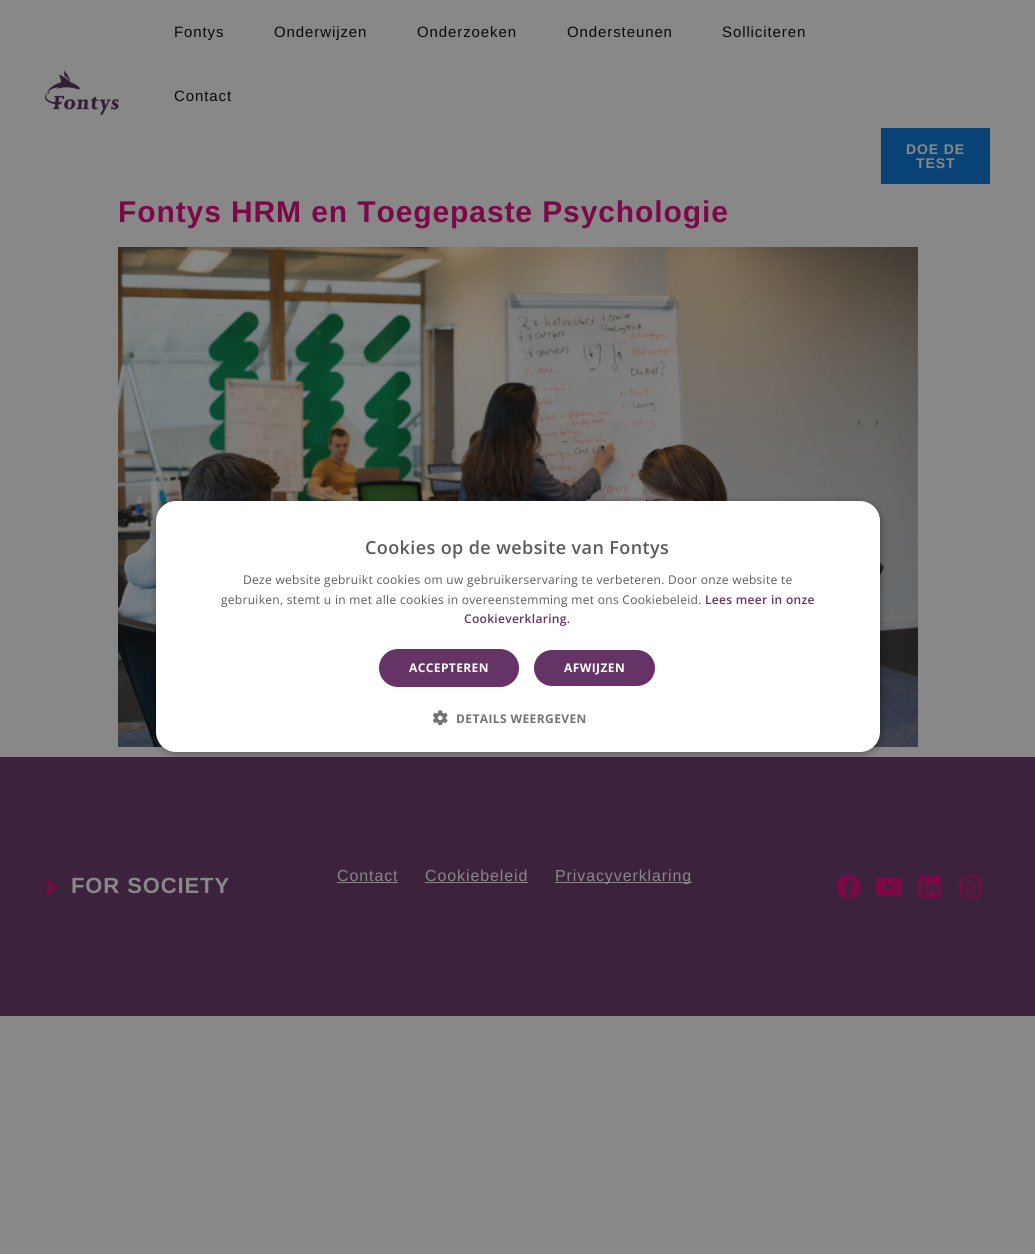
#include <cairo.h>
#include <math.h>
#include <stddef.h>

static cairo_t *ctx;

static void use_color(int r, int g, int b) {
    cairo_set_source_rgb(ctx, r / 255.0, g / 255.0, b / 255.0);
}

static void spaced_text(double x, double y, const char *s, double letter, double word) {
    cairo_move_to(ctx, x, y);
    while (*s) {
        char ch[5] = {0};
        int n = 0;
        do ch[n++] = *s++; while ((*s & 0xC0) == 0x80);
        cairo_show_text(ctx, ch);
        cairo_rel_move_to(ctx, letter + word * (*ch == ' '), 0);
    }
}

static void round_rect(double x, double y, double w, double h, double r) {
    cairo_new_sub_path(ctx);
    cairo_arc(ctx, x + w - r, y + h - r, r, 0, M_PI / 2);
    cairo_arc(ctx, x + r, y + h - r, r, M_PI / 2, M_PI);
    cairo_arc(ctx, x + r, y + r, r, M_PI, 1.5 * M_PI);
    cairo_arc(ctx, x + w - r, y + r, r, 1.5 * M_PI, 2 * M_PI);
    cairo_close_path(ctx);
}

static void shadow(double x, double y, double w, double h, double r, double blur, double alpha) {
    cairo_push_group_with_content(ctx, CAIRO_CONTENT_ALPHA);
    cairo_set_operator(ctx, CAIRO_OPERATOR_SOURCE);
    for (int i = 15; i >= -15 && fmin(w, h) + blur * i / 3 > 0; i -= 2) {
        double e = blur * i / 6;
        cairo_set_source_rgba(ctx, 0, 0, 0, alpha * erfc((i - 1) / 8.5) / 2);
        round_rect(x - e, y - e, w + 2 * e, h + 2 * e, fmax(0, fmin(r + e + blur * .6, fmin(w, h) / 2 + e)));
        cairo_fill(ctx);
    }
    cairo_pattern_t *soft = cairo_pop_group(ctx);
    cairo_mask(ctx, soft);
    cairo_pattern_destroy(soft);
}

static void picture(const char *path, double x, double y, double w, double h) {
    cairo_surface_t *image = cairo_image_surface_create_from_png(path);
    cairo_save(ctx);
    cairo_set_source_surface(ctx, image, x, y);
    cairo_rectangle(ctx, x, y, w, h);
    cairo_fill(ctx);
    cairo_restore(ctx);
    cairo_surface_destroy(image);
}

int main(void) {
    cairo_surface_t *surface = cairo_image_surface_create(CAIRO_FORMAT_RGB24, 1035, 1254);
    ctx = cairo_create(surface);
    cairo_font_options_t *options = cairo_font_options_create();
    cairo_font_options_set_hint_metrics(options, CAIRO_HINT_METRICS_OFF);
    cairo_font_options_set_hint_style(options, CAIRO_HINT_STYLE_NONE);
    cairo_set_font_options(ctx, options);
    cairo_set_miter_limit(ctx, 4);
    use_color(136, 136, 136);
    cairo_paint(ctx);
    picture("img1.png", 45, 70, 74, 45);
    cairo_select_font_face(ctx, "Liberation Sans", CAIRO_FONT_SLANT_NORMAL, CAIRO_FONT_WEIGHT_NORMAL);
    cairo_set_font_size(ctx, 15);
    use_color(9, 9, 9);
    spaced_text(174, 37, "Fontys", 0.9, 0);
    spaced_text(274, 37, "Onderwijzen", 0.9, 0);
    spaced_text(417, 37, "Onderzoeken", 0.9, 0);
    spaced_text(567, 37, "Ondersteunen", 0.9, 0);
    spaced_text(722, 37, "Solliciteren", 0.9, 0);
    spaced_text(174, 101, "Contact", 0.9, 0);
    use_color(9, 67, 118);
    cairo_rectangle(ctx, 881, 128, 109, 56);
    cairo_fill(ctx);
    cairo_select_font_face(ctx, "Liberation Sans", CAIRO_FONT_SLANT_NORMAL, CAIRO_FONT_WEIGHT_BOLD);
    cairo_set_font_size(ctx, 14);
    use_color(136, 136, 136);
    spaced_text(906, 154, "DOE DE", 0.9, 0);
    spaced_text(916, 168, "TEST", 0.9, 0);
    cairo_set_font_size(ctx, 30);
    use_color(123, 9, 72);
    spaced_text(118, 222, "Fontys HRM en Toegepaste Psychologie", 0.9, 0);
    picture("img2.png", 118, 247, 800, 500);
    use_color(60, 34, 60);
    cairo_rectangle(ctx, 0, 757, 1035, 259);
    cairo_fill(ctx);
    use_color(0, 0, 0);
    shadow(157, 503, 724, 251, 20, 4, 0.35);
    use_color(255, 255, 255);
    round_rect(156, 501, 724, 251, 20);
    cairo_fill(ctx);
    cairo_select_font_face(ctx, "Open Sans SemiBold", CAIRO_FONT_SLANT_NORMAL, CAIRO_FONT_WEIGHT_NORMAL);
    cairo_set_font_size(ctx, 18);
    use_color(91, 91, 91);
    spaced_text(365, 554, "Cookies op de website van Fontys", 0.4, 0);
    cairo_select_font_face(ctx, "Open Sans", CAIRO_FONT_SLANT_NORMAL, CAIRO_FONT_WEIGHT_NORMAL);
    cairo_set_font_size(ctx, 12);
    spaced_text(243, 584, "Deze website gebruikt cookies om uw gebruikerservaring te verbeteren. Door onze website te", 0.3, 0);
    spaced_text(221, 604, "gebruiken, stemt u in met alle cookies in overeenstemming met ons Cookiebeleid.", 0.3, 0);
    cairo_select_font_face(ctx, "Open Sans SemiBold", CAIRO_FONT_SLANT_NORMAL, CAIRO_FONT_WEIGHT_NORMAL);
    use_color(102, 51, 102);
    spaced_text(705, 604, "Lees meer in onze", 0.3, 0);
    spaced_text(464, 623, "Cookieverklaring.", 0.3, 0);
    round_rect(379, 649, 140, 38, 19);
    cairo_fill(ctx);
    cairo_select_font_face(ctx, "Open Sans", CAIRO_FONT_SLANT_NORMAL, CAIRO_FONT_WEIGHT_BOLD);
    use_color(255, 255, 255);
    spaced_text(409, 672, "ACCEPTEREN", 0.4, 0);
    use_color(102, 51, 102);
    round_rect(533.5, 649.5, 122, 37, 18.5);
    cairo_fill_preserve(ctx);
    use_color(255, 255, 255);
    cairo_set_line_width(ctx, 1);
    cairo_stroke(ctx);
    spaced_text(564, 672, "AFWIJZEN", 0.4, 0);
    picture("img3.png", 433, 710, 15, 15);
    use_color(116, 116, 116);
    spaced_text(456, 723, "DETAILS WEERGEVEN", 0.4, 0);
    picture("img4.png", 45, 879, 11, 17);
    cairo_select_font_face(ctx, "Liberation Sans", CAIRO_FONT_SLANT_NORMAL, CAIRO_FONT_WEIGHT_BOLD);
    cairo_set_font_size(ctx, 22);
    use_color(136, 136, 136);
    spaced_text(71, 893, "FOR SOCIETY", 0.9, 0);
    cairo_select_font_face(ctx, "Liberation Sans", CAIRO_FONT_SLANT_NORMAL, CAIRO_FONT_WEIGHT_NORMAL);
    cairo_set_font_size(ctx, 16);
    spaced_text(337, 881, "Contact", 0.9, 0);
    cairo_rectangle(ctx, 337, 882, 61, 1);
    cairo_fill(ctx);
    spaced_text(425, 881, "Cookiebeleid", 0.9, 0);
    cairo_rectangle(ctx, 425, 882, 103, 1);
    cairo_fill(ctx);
    cairo_rectangle(ctx, 555, 882, 137, 1);
    cairo_fill(ctx);
    spaced_text(555, 881, "Privacyverklaring", 0.9, 0);
    picture("img5.png", 836, 874, 25, 25);
    picture("img6.png", 875, 877, 27, 19);
    picture("img7.png", 918, 875, 23, 23);
    picture("img8.png", 959, 875, 23, 23);
    cairo_surface_write_to_png(surface, "result.png");
    cairo_font_options_destroy(options);
    cairo_destroy(ctx);
    cairo_surface_destroy(surface);
    return 0;
}
